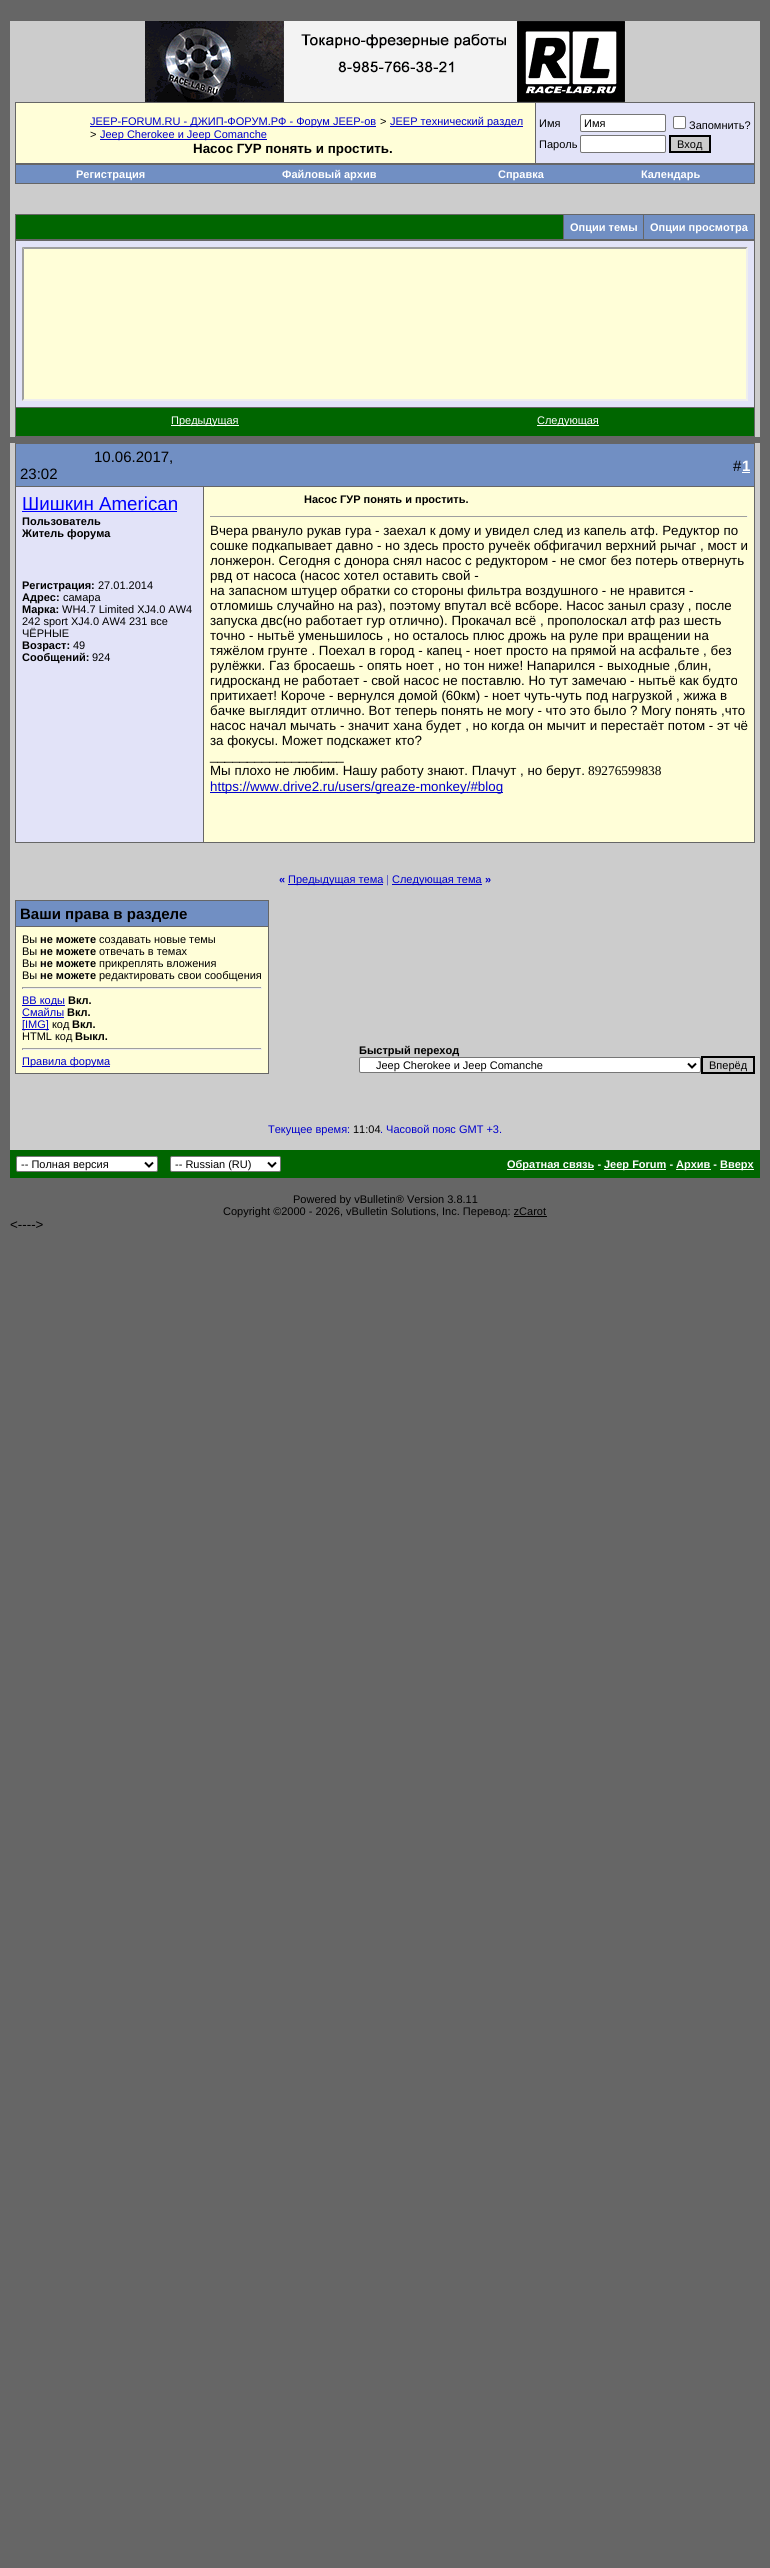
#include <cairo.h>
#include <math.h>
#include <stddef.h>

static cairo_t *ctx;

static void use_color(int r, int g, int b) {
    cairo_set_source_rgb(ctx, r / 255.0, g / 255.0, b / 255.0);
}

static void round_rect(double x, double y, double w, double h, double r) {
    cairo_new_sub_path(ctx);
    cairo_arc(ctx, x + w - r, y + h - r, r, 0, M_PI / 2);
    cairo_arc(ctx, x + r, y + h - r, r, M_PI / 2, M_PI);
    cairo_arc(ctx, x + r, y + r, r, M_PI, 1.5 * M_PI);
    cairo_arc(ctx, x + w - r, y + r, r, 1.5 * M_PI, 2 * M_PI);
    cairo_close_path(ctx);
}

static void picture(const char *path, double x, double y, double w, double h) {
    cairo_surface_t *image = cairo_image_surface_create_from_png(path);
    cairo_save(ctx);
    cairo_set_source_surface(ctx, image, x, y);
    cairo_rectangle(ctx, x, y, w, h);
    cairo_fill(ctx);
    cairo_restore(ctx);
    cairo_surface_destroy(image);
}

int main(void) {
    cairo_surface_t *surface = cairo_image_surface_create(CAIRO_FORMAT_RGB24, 770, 2568);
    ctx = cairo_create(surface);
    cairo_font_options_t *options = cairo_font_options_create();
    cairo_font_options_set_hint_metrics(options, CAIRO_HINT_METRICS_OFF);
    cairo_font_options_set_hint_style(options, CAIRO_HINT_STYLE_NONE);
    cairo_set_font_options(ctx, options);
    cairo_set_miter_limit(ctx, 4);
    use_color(102, 102, 102);
    cairo_paint(ctx);
    use_color(204, 204, 204);
    cairo_rectangle(ctx, 10, 21, 750, 416);
    cairo_fill(ctx);
    picture("img1.png", 145, 21, 480, 81);
    use_color(102, 102, 102);
    cairo_rectangle(ctx, 15, 102, 740, 82);
    cairo_fill(ctx);
    use_color(255, 254, 216);
    cairo_rectangle(ctx, 16, 103, 519, 60);
    cairo_fill(ctx);
    use_color(0, 0, 204);
    cairo_rectangle(ctx, 90, 126, 286, 1);
    cairo_fill(ctx);
    cairo_select_font_face(ctx, "Liberation Sans", CAIRO_FONT_SLANT_NORMAL, CAIRO_FONT_WEIGHT_NORMAL);
    cairo_set_font_size(ctx, 11);
    cairo_move_to(ctx, 90, 125);
    cairo_show_text(ctx, "JEEP-FORUM.RU - ДЖИП-ФОРУМ.РФ - Форум JEEP-ов");
    use_color(0, 0, 0);
    cairo_move_to(ctx, 380, 125);
    cairo_show_text(ctx, ">");
    use_color(0, 0, 204);
    cairo_rectangle(ctx, 390, 126, 133, 1);
    cairo_fill(ctx);
    cairo_move_to(ctx, 390, 125);
    cairo_show_text(ctx, "JEEP технический раздел");
    use_color(0, 0, 0);
    cairo_move_to(ctx, 90, 138);
    cairo_show_text(ctx, ">");
    use_color(0, 0, 204);
    cairo_rectangle(ctx, 100, 139, 167, 1);
    cairo_fill(ctx);
    cairo_move_to(ctx, 100, 138);
    cairo_show_text(ctx, "Jeep Cherokee и Jeep Comanche");
    cairo_select_font_face(ctx, "Liberation Sans", CAIRO_FONT_SLANT_NORMAL, CAIRO_FONT_WEIGHT_BOLD);
    cairo_set_font_size(ctx, 13.35);
    use_color(0, 0, 0);
    cairo_move_to(ctx, 193, 153);
    cairo_show_text(ctx, "Насос ГУР понять и простить.");
    use_color(226, 227, 248);
    cairo_rectangle(ctx, 536, 103, 218, 60);
    cairo_fill(ctx);
    cairo_select_font_face(ctx, "Liberation Sans", CAIRO_FONT_SLANT_NORMAL, CAIRO_FONT_WEIGHT_NORMAL);
    cairo_set_font_size(ctx, 11);
    use_color(0, 0, 0);
    cairo_move_to(ctx, 539, 127);
    cairo_show_text(ctx, "Имя");
    use_color(255, 255, 255);
    round_rect(580.5, 114.5, 85, 17, 1.5);
    cairo_fill_preserve(ctx);
    use_color(118, 118, 118);
    cairo_set_line_width(ctx, 1);
    cairo_stroke(ctx);
    use_color(0, 0, 0);
    cairo_move_to(ctx, 584, 127);
    cairo_show_text(ctx, "Имя");
    use_color(255, 255, 255);
    round_rect(673.5, 116.5, 12, 12, 1.5);
    cairo_fill_preserve(ctx);
    use_color(118, 118, 118);
    cairo_stroke(ctx);
    use_color(0, 0, 0);
    cairo_move_to(ctx, 689, 129);
    cairo_show_text(ctx, "Запомнить?");
    cairo_move_to(ctx, 539, 148);
    cairo_show_text(ctx, "Пароль");
    use_color(255, 255, 255);
    round_rect(580.5, 135.5, 85, 17, 1.5);
    cairo_fill_preserve(ctx);
    use_color(118, 118, 118);
    cairo_stroke(ctx);
    use_color(204, 204, 204);
    cairo_rectangle(ctx, 670, 136, 40, 16);
    cairo_fill_preserve(ctx);
    use_color(0, 0, 0);
    cairo_set_line_width(ctx, 2);
    cairo_stroke(ctx);
    cairo_move_to(ctx, 677, 148);
    cairo_show_text(ctx, "Вход");
    use_color(113, 143, 195);
    cairo_rectangle(ctx, 16, 165, 738, 18);
    cairo_fill(ctx);
    cairo_select_font_face(ctx, "Liberation Sans", CAIRO_FONT_SLANT_NORMAL, CAIRO_FONT_WEIGHT_BOLD);
    use_color(255, 255, 255);
    cairo_move_to(ctx, 76, 178);
    cairo_show_text(ctx, "Регистрация");
    cairo_move_to(ctx, 282, 178);
    cairo_show_text(ctx, "Файловый архив");
    cairo_move_to(ctx, 498, 178);
    cairo_show_text(ctx, "Справка");
    cairo_move_to(ctx, 641, 178);
    cairo_show_text(ctx, "Календарь");
    use_color(102, 102, 102);
    cairo_rectangle(ctx, 15, 214, 740, 223);
    cairo_fill(ctx);
    use_color(0, 102, 0);
    cairo_rectangle(ctx, 16, 215, 547, 24);
    cairo_fill(ctx);
    use_color(113, 143, 195);
    cairo_rectangle(ctx, 564, 215, 79, 24);
    cairo_fill(ctx);
    use_color(255, 255, 255);
    cairo_move_to(ctx, 570, 231);
    cairo_show_text(ctx, "Опции темы");
    use_color(113, 143, 195);
    cairo_rectangle(ctx, 644, 215, 110, 24);
    cairo_fill(ctx);
    use_color(255, 255, 255);
    cairo_move_to(ctx, 650, 231);
    cairo_show_text(ctx, "Опции просмотра");
    use_color(226, 227, 248);
    cairo_rectangle(ctx, 16, 241, 738, 166);
    cairo_fill(ctx);
    use_color(255, 254, 216);
    cairo_rectangle(ctx, 22, 247, 726, 154);
    cairo_fill(ctx);
    use_color(159, 159, 159);
    cairo_new_path(ctx);
    cairo_move_to(ctx, 22, 247);
    cairo_line_to(ctx, 748, 247);
    cairo_line_to(ctx, 746, 249);
    cairo_line_to(ctx, 24, 249);
    cairo_close_path(ctx);
    cairo_fill(ctx);
    use_color(238, 238, 238);
    cairo_new_path(ctx);
    cairo_move_to(ctx, 748, 247);
    cairo_line_to(ctx, 748, 401);
    cairo_line_to(ctx, 746, 399);
    cairo_line_to(ctx, 746, 249);
    cairo_close_path(ctx);
    cairo_fill(ctx);
    cairo_new_path(ctx);
    cairo_move_to(ctx, 748, 401);
    cairo_line_to(ctx, 22, 401);
    cairo_line_to(ctx, 24, 399);
    cairo_line_to(ctx, 746, 399);
    cairo_close_path(ctx);
    cairo_fill(ctx);
    use_color(159, 159, 159);
    cairo_new_path(ctx);
    cairo_move_to(ctx, 22, 401);
    cairo_line_to(ctx, 22, 247);
    cairo_line_to(ctx, 24, 249);
    cairo_line_to(ctx, 24, 399);
    cairo_close_path(ctx);
    cairo_fill(ctx);
    use_color(0, 102, 0);
    cairo_rectangle(ctx, 16, 408, 738, 28);
    cairo_fill(ctx);
    use_color(255, 255, 255);
    cairo_rectangle(ctx, 171, 425, 68, 1);
    cairo_fill(ctx);
    cairo_select_font_face(ctx, "Liberation Sans", CAIRO_FONT_SLANT_NORMAL, CAIRO_FONT_WEIGHT_NORMAL);
    cairo_move_to(ctx, 171, 424);
    cairo_show_text(ctx, "Предыдущая");
    cairo_rectangle(ctx, 537, 425, 62, 1);
    cairo_fill(ctx);
    cairo_move_to(ctx, 537, 424);
    cairo_show_text(ctx, "Следующая");
    use_color(204, 204, 204);
    cairo_rectangle(ctx, 10, 443, 750, 707);
    cairo_fill(ctx);
    use_color(113, 143, 195);
    cairo_rectangle(ctx, 16, 444, 738, 42);
    cairo_fill(ctx);
    use_color(102, 102, 102);
    cairo_rectangle(ctx, 15, 443, 740, 1);
    cairo_fill(ctx);
    cairo_rectangle(ctx, 15, 486, 189, 1);
    cairo_fill(ctx);
    cairo_rectangle(ctx, 15, 443, 1, 357);
    cairo_fill(ctx);
    cairo_set_font_size(ctx, 15);
    use_color(0, 0, 0);
    cairo_move_to(ctx, 94, 462);
    cairo_show_text(ctx, "10.06.2017,");
    cairo_move_to(ctx, 20, 479);
    cairo_show_text(ctx, "23:02");
    use_color(102, 102, 102);
    cairo_rectangle(ctx, 754, 443, 1, 400);
    cairo_fill(ctx);
    cairo_rectangle(ctx, 204, 486, 551, 1);
    cairo_fill(ctx);
    use_color(0, 0, 0);
    cairo_move_to(ctx, 733, 471);
    cairo_show_text(ctx, "#");
    cairo_select_font_face(ctx, "Liberation Sans", CAIRO_FONT_SLANT_NORMAL, CAIRO_FONT_WEIGHT_BOLD);
    use_color(255, 255, 255);
    cairo_move_to(ctx, 742, 471);
    cairo_show_text(ctx, "1");
    cairo_rectangle(ctx, 742, 472, 8, 1);
    cairo_fill(ctx);
    use_color(226, 227, 248);
    cairo_rectangle(ctx, 16, 487, 187, 355);
    cairo_fill(ctx);
    use_color(102, 102, 102);
    cairo_rectangle(ctx, 203, 487, 1, 356);
    cairo_fill(ctx);
    cairo_select_font_face(ctx, "Liberation Sans", CAIRO_FONT_SLANT_NORMAL, CAIRO_FONT_WEIGHT_NORMAL);
    cairo_set_font_size(ctx, 18.75);
    use_color(0, 0, 255);
    cairo_move_to(ctx, 22, 510);
    cairo_show_text(ctx, "Шишкин American");
    cairo_rectangle(ctx, 22, 511, 155, 1);
    cairo_fill(ctx);
    cairo_select_font_face(ctx, "Liberation Sans", CAIRO_FONT_SLANT_NORMAL, CAIRO_FONT_WEIGHT_BOLD);
    cairo_set_font_size(ctx, 11);
    use_color(0, 0, 0);
    cairo_move_to(ctx, 22, 525);
    cairo_show_text(ctx, "Пользователь");
    cairo_move_to(ctx, 22, 537);
    cairo_show_text(ctx, "Житель форума");
    cairo_move_to(ctx, 22, 589);
    cairo_show_text(ctx, "Регистрация:");
    cairo_select_font_face(ctx, "Liberation Sans", CAIRO_FONT_SLANT_NORMAL, CAIRO_FONT_WEIGHT_NORMAL);
    cairo_move_to(ctx, 98, 589);
    cairo_show_text(ctx, "27.01.2014");
    cairo_select_font_face(ctx, "Liberation Sans", CAIRO_FONT_SLANT_NORMAL, CAIRO_FONT_WEIGHT_BOLD);
    cairo_move_to(ctx, 22, 601);
    cairo_show_text(ctx, "Адрес:");
    cairo_select_font_face(ctx, "Liberation Sans", CAIRO_FONT_SLANT_NORMAL, CAIRO_FONT_WEIGHT_NORMAL);
    cairo_move_to(ctx, 63, 601);
    cairo_show_text(ctx, "самара");
    cairo_select_font_face(ctx, "Liberation Sans", CAIRO_FONT_SLANT_NORMAL, CAIRO_FONT_WEIGHT_BOLD);
    cairo_move_to(ctx, 22, 613);
    cairo_show_text(ctx, "Марка:");
    cairo_select_font_face(ctx, "Liberation Sans", CAIRO_FONT_SLANT_NORMAL, CAIRO_FONT_WEIGHT_NORMAL);
    cairo_move_to(ctx, 62, 613);
    cairo_show_text(ctx, "WH4.7 Limited XJ4.0 AW4");
    cairo_move_to(ctx, 22, 625);
    cairo_show_text(ctx, "242 sport XJ4.0 AW4 231 все");
    cairo_move_to(ctx, 22, 637);
    cairo_show_text(ctx, "ЧЁРНЫЕ");
    cairo_select_font_face(ctx, "Liberation Sans", CAIRO_FONT_SLANT_NORMAL, CAIRO_FONT_WEIGHT_BOLD);
    cairo_move_to(ctx, 22, 649);
    cairo_show_text(ctx, "Возраст:");
    cairo_select_font_face(ctx, "Liberation Sans", CAIRO_FONT_SLANT_NORMAL, CAIRO_FONT_WEIGHT_NORMAL);
    cairo_move_to(ctx, 73, 649);
    cairo_show_text(ctx, "49");
    cairo_select_font_face(ctx, "Liberation Sans", CAIRO_FONT_SLANT_NORMAL, CAIRO_FONT_WEIGHT_BOLD);
    cairo_move_to(ctx, 22, 661);
    cairo_show_text(ctx, "Сообщений:");
    cairo_select_font_face(ctx, "Liberation Sans", CAIRO_FONT_SLANT_NORMAL, CAIRO_FONT_WEIGHT_NORMAL);
    cairo_move_to(ctx, 92, 661);
    cairo_show_text(ctx, "924");
    use_color(255, 254, 216);
    cairo_rectangle(ctx, 204, 487, 550, 355);
    cairo_fill(ctx);
    cairo_select_font_face(ctx, "Liberation Sans", CAIRO_FONT_SLANT_NORMAL, CAIRO_FONT_WEIGHT_BOLD);
    use_color(0, 0, 0);
    cairo_move_to(ctx, 304, 503);
    cairo_show_text(ctx, "Насос ГУР понять и простить.");
    use_color(159, 159, 159);
    cairo_rectangle(ctx, 210, 516, 538, 1);
    cairo_fill(ctx);
    use_color(238, 238, 238);
    cairo_rectangle(ctx, 747, 516, 1, 1);
    cairo_fill(ctx);
    cairo_select_font_face(ctx, "Liberation Sans", CAIRO_FONT_SLANT_NORMAL, CAIRO_FONT_WEIGHT_NORMAL);
    cairo_set_font_size(ctx, 13.35);
    use_color(0, 0, 0);
    cairo_move_to(ctx, 210, 535);
    cairo_show_text(ctx, "Вчера рвануло рукав гура - заехал к дому и увидел след из капель атф. Редуктор по");
    cairo_move_to(ctx, 210, 550);
    cairo_show_text(ctx, "сошке подкапывает давно - но здесь просто ручеёк обфигачил верхний рычаг , мост и");
    cairo_move_to(ctx, 210, 565);
    cairo_show_text(ctx, "лонжерон. Сегодня с донора снял насос с редуктором - не смог без потерь отвернуть");
    cairo_move_to(ctx, 210, 580);
    cairo_show_text(ctx, "рвд от насоса (насос хотел оставить свой -");
    cairo_move_to(ctx, 210, 595);
    cairo_show_text(ctx, "на запасном штуцер обратки со стороны фильтра воздушного - не нравится -");
    cairo_move_to(ctx, 210, 610);
    cairo_show_text(ctx, "отломишь случайно на раз), поэтому впутал всё всборе. Насос заныл сразу , после");
    cairo_move_to(ctx, 210, 625);
    cairo_show_text(ctx, "запуска двс(но работает гур отлично). Прокачал всё , прополоскал атф раз шесть");
    cairo_move_to(ctx, 210, 640);
    cairo_show_text(ctx, "точно - нытьё уменьшилось , но осталось плюс дрожь на руле при вращении на");
    cairo_move_to(ctx, 210, 655);
    cairo_show_text(ctx, "тяжёлом грунте . Поехал в город - капец - ноет просто на прямой на асфальте , без");
    cairo_move_to(ctx, 210, 670);
    cairo_show_text(ctx, "рулёжки. Газ бросаешь - опять ноет , но тон ниже! Напарился - выходные ,блин,");
    cairo_move_to(ctx, 210, 685);
    cairo_show_text(ctx, "гидросканд не работает - свой насос не поставлю. Но тут замечаю - нытьё как будто");
    cairo_move_to(ctx, 210, 700);
    cairo_show_text(ctx, "притихает! Короче - вернулся домой (60км) - ноет чуть-чуть под нагрузкой , жижа в");
    cairo_move_to(ctx, 210, 715);
    cairo_show_text(ctx, "бачке выглядит отлично. Вот теперь понять не могу - что это было ? Могу понять ,что");
    cairo_move_to(ctx, 210, 730);
    cairo_show_text(ctx, "насос начал мычать - значит хана будет , но когда он мычит и перестаёт потом - эт чё");
    cairo_move_to(ctx, 210, 745);
    cairo_show_text(ctx, "за фокусы. Может подскажет кто?");
    cairo_move_to(ctx, 210, 760);
    cairo_show_text(ctx, "__________________");
    cairo_move_to(ctx, 210, 775);
    cairo_show_text(ctx, "Мы плохо не любим. Нашу работу знают. Плачут , но берут.");
    cairo_select_font_face(ctx, "Liberation Serif", CAIRO_FONT_SLANT_NORMAL, CAIRO_FONT_WEIGHT_NORMAL);
    cairo_move_to(ctx, 588, 775);
    cairo_show_text(ctx, "89276599838");
    use_color(0, 0, 204);
    cairo_rectangle(ctx, 210, 792, 293, 1);
    cairo_fill(ctx);
    cairo_select_font_face(ctx, "Liberation Sans", CAIRO_FONT_SLANT_NORMAL, CAIRO_FONT_WEIGHT_NORMAL);
    cairo_move_to(ctx, 210, 791);
    cairo_show_text(ctx, "https://www.drive2.ru/users/greaze-monkey/#blog");
    use_color(102, 102, 102);
    cairo_rectangle(ctx, 15, 842, 740, 1);
    cairo_fill(ctx);
    cairo_rectangle(ctx, 15, 800, 1, 43);
    cairo_fill(ctx);
    cairo_select_font_face(ctx, "Liberation Sans", CAIRO_FONT_SLANT_NORMAL, CAIRO_FONT_WEIGHT_BOLD);
    cairo_set_font_size(ctx, 11);
    use_color(0, 0, 204);
    cairo_move_to(ctx, 279, 883);
    cairo_show_text(ctx, "«");
    cairo_rectangle(ctx, 288, 884, 95, 1);
    cairo_fill(ctx);
    cairo_select_font_face(ctx, "Liberation Sans", CAIRO_FONT_SLANT_NORMAL, CAIRO_FONT_WEIGHT_NORMAL);
    cairo_move_to(ctx, 288, 883);
    cairo_show_text(ctx, "Предыдущая тема |");
    cairo_rectangle(ctx, 392, 884, 90, 1);
    cairo_fill(ctx);
    cairo_move_to(ctx, 392, 883);
    cairo_show_text(ctx, "Следующая тема");
    cairo_select_font_face(ctx, "Liberation Sans", CAIRO_FONT_SLANT_NORMAL, CAIRO_FONT_WEIGHT_BOLD);
    cairo_move_to(ctx, 485, 883);
    cairo_show_text(ctx, "»");
    use_color(102, 102, 102);
    cairo_rectangle(ctx, 15, 900, 254, 174);
    cairo_fill(ctx);
    use_color(113, 143, 195);
    cairo_rectangle(ctx, 16, 901, 252, 25);
    cairo_fill(ctx);
    cairo_set_font_size(ctx, 15);
    use_color(0, 0, 0);
    cairo_move_to(ctx, 20, 919);
    cairo_show_text(ctx, "Ваши права в разделе");
    use_color(255, 254, 216);
    cairo_rectangle(ctx, 16, 927, 252, 146);
    cairo_fill(ctx);
    cairo_select_font_face(ctx, "Liberation Sans", CAIRO_FONT_SLANT_NORMAL, CAIRO_FONT_WEIGHT_NORMAL);
    cairo_set_font_size(ctx, 11);
    use_color(0, 0, 0);
    cairo_move_to(ctx, 22, 943);
    cairo_show_text(ctx, "Вы");
    cairo_select_font_face(ctx, "Liberation Sans", CAIRO_FONT_SLANT_NORMAL, CAIRO_FONT_WEIGHT_BOLD);
    cairo_move_to(ctx, 40, 943);
    cairo_show_text(ctx, "не можете");
    cairo_select_font_face(ctx, "Liberation Sans", CAIRO_FONT_SLANT_NORMAL, CAIRO_FONT_WEIGHT_NORMAL);
    cairo_move_to(ctx, 99, 943);
    cairo_show_text(ctx, "создавать новые темы");
    cairo_move_to(ctx, 22, 955);
    cairo_show_text(ctx, "Вы");
    cairo_select_font_face(ctx, "Liberation Sans", CAIRO_FONT_SLANT_NORMAL, CAIRO_FONT_WEIGHT_BOLD);
    cairo_move_to(ctx, 40, 955);
    cairo_show_text(ctx, "не можете");
    cairo_select_font_face(ctx, "Liberation Sans", CAIRO_FONT_SLANT_NORMAL, CAIRO_FONT_WEIGHT_NORMAL);
    cairo_move_to(ctx, 99, 955);
    cairo_show_text(ctx, "отвечать в темах");
    cairo_move_to(ctx, 22, 967);
    cairo_show_text(ctx, "Вы");
    cairo_select_font_face(ctx, "Liberation Sans", CAIRO_FONT_SLANT_NORMAL, CAIRO_FONT_WEIGHT_BOLD);
    cairo_move_to(ctx, 40, 967);
    cairo_show_text(ctx, "не можете");
    cairo_select_font_face(ctx, "Liberation Sans", CAIRO_FONT_SLANT_NORMAL, CAIRO_FONT_WEIGHT_NORMAL);
    cairo_move_to(ctx, 99, 967);
    cairo_show_text(ctx, "прикреплять вложения");
    cairo_move_to(ctx, 22, 979);
    cairo_show_text(ctx, "Вы");
    cairo_select_font_face(ctx, "Liberation Sans", CAIRO_FONT_SLANT_NORMAL, CAIRO_FONT_WEIGHT_BOLD);
    cairo_move_to(ctx, 40, 979);
    cairo_show_text(ctx, "не можете");
    cairo_select_font_face(ctx, "Liberation Sans", CAIRO_FONT_SLANT_NORMAL, CAIRO_FONT_WEIGHT_NORMAL);
    cairo_move_to(ctx, 99, 979);
    cairo_show_text(ctx, "редактировать свои сообщения");
    use_color(159, 159, 159);
    cairo_rectangle(ctx, 22, 987, 240, 1);
    cairo_fill(ctx);
    use_color(238, 238, 238);
    cairo_rectangle(ctx, 261, 987, 1, 2);
    cairo_fill(ctx);
    cairo_rectangle(ctx, 22, 988, 240, 1);
    cairo_fill(ctx);
    use_color(159, 159, 159);
    cairo_rectangle(ctx, 22, 987, 1, 2);
    cairo_fill(ctx);
    use_color(0, 0, 204);
    cairo_rectangle(ctx, 22, 1005, 43, 1);
    cairo_fill(ctx);
    cairo_move_to(ctx, 22, 1004);
    cairo_show_text(ctx, "BB коды");
    cairo_select_font_face(ctx, "Liberation Sans", CAIRO_FONT_SLANT_NORMAL, CAIRO_FONT_WEIGHT_BOLD);
    use_color(0, 0, 0);
    cairo_move_to(ctx, 68, 1004);
    cairo_show_text(ctx, "Вкл.");
    cairo_select_font_face(ctx, "Liberation Sans", CAIRO_FONT_SLANT_NORMAL, CAIRO_FONT_WEIGHT_NORMAL);
    use_color(0, 0, 204);
    cairo_move_to(ctx, 22, 1016);
    cairo_show_text(ctx, "Смайлы");
    use_color(255, 254, 216);
    cairo_rectangle(ctx, 50, 1006, 7, 1);
    cairo_fill(ctx);
    use_color(0, 0, 204);
    cairo_rectangle(ctx, 22, 1017, 42, 1);
    cairo_fill(ctx);
    cairo_select_font_face(ctx, "Liberation Sans", CAIRO_FONT_SLANT_NORMAL, CAIRO_FONT_WEIGHT_BOLD);
    use_color(0, 0, 0);
    cairo_move_to(ctx, 67, 1016);
    cairo_show_text(ctx, "Вкл.");
    use_color(0, 0, 204);
    cairo_rectangle(ctx, 22, 1029, 27, 1);
    cairo_fill(ctx);
    cairo_select_font_face(ctx, "Liberation Sans", CAIRO_FONT_SLANT_NORMAL, CAIRO_FONT_WEIGHT_NORMAL);
    cairo_move_to(ctx, 22, 1028);
    cairo_show_text(ctx, "[IMG]");
    use_color(0, 0, 0);
    cairo_move_to(ctx, 52, 1028);
    cairo_show_text(ctx, "код");
    cairo_select_font_face(ctx, "Liberation Sans", CAIRO_FONT_SLANT_NORMAL, CAIRO_FONT_WEIGHT_BOLD);
    cairo_move_to(ctx, 72, 1028);
    cairo_show_text(ctx, "Вкл.");
    cairo_select_font_face(ctx, "Liberation Sans", CAIRO_FONT_SLANT_NORMAL, CAIRO_FONT_WEIGHT_NORMAL);
    cairo_move_to(ctx, 22, 1040);
    cairo_show_text(ctx, "HTML код");
    cairo_select_font_face(ctx, "Liberation Sans", CAIRO_FONT_SLANT_NORMAL, CAIRO_FONT_WEIGHT_BOLD);
    cairo_move_to(ctx, 75, 1040);
    cairo_show_text(ctx, "Выкл.");
    use_color(159, 159, 159);
    cairo_rectangle(ctx, 22, 1048, 240, 1);
    cairo_fill(ctx);
    use_color(238, 238, 238);
    cairo_rectangle(ctx, 261, 1048, 1, 2);
    cairo_fill(ctx);
    cairo_rectangle(ctx, 22, 1049, 240, 1);
    cairo_fill(ctx);
    use_color(159, 159, 159);
    cairo_rectangle(ctx, 22, 1048, 1, 2);
    cairo_fill(ctx);
    use_color(0, 0, 204);
    cairo_rectangle(ctx, 22, 1066, 88, 1);
    cairo_fill(ctx);
    cairo_select_font_face(ctx, "Liberation Sans", CAIRO_FONT_SLANT_NORMAL, CAIRO_FONT_WEIGHT_NORMAL);
    cairo_move_to(ctx, 22, 1065);
    cairo_show_text(ctx, "Правила форума");
    cairo_select_font_face(ctx, "Liberation Sans", CAIRO_FONT_SLANT_NORMAL, CAIRO_FONT_WEIGHT_BOLD);
    use_color(0, 0, 0);
    cairo_move_to(ctx, 359, 1054);
    cairo_show_text(ctx, "Быстрый переход");
    use_color(255, 255, 255);
    round_rect(359.5, 1057.5, 341, 15, 1.5);
    cairo_fill_preserve(ctx);
    use_color(118, 118, 118);
    cairo_set_line_width(ctx, 1);
    cairo_stroke(ctx);
    cairo_new_path(ctx);
    cairo_move_to(ctx, 688, 1063.5);
    cairo_line_to(ctx, 692, 1067.5);
    cairo_line_to(ctx, 696, 1063.5);
    use_color(0, 0, 0);
    cairo_set_line_width(ctx, 2);
    cairo_stroke(ctx);
    cairo_select_font_face(ctx, "Liberation Sans", CAIRO_FONT_SLANT_NORMAL, CAIRO_FONT_WEIGHT_NORMAL);
    cairo_move_to(ctx, 376, 1069);
    cairo_show_text(ctx, "Jeep Cherokee и Jeep Comanche");
    cairo_rectangle(ctx, 702, 1057, 52, 16);
    cairo_stroke(ctx);
    cairo_move_to(ctx, 709, 1069);
    cairo_show_text(ctx, "Вперёд");
    use_color(0, 0, 204);
    cairo_move_to(ctx, 268, 1133);
    cairo_show_text(ctx, "Текущее время:");
    use_color(0, 0, 0);
    cairo_move_to(ctx, 353, 1133);
    cairo_show_text(ctx, "11:04");
    use_color(0, 0, 204);
    cairo_move_to(ctx, 380, 1133);
    cairo_show_text(ctx, ". Часовой пояс GMT +3.");
    use_color(0, 102, 0);
    cairo_rectangle(ctx, 10, 1150, 750, 28);
    cairo_fill(ctx);
    use_color(255, 255, 255);
    round_rect(16.5, 1156.5, 141, 15, 1.5);
    cairo_fill_preserve(ctx);
    use_color(118, 118, 118);
    cairo_set_line_width(ctx, 1);
    cairo_stroke(ctx);
    cairo_new_path(ctx);
    cairo_move_to(ctx, 145, 1162.5);
    cairo_line_to(ctx, 149, 1166.5);
    cairo_line_to(ctx, 153, 1162.5);
    use_color(0, 0, 0);
    cairo_set_line_width(ctx, 2);
    cairo_stroke(ctx);
    cairo_move_to(ctx, 21, 1168);
    cairo_show_text(ctx, "-- Полная версия");
    use_color(255, 255, 255);
    round_rect(170.5, 1156.5, 110, 15, 1.5);
    cairo_fill_preserve(ctx);
    use_color(118, 118, 118);
    cairo_set_line_width(ctx, 1);
    cairo_stroke(ctx);
    cairo_new_path(ctx);
    cairo_move_to(ctx, 268, 1162.5);
    cairo_line_to(ctx, 272, 1166.5);
    cairo_line_to(ctx, 276, 1162.5);
    use_color(0, 0, 0);
    cairo_set_line_width(ctx, 2);
    cairo_stroke(ctx);
    cairo_move_to(ctx, 175, 1168);
    cairo_show_text(ctx, "-- Russian (RU)");
    use_color(255, 255, 255);
    cairo_rectangle(ctx, 507, 1169, 87, 1);
    cairo_fill(ctx);
    cairo_select_font_face(ctx, "Liberation Sans", CAIRO_FONT_SLANT_NORMAL, CAIRO_FONT_WEIGHT_BOLD);
    cairo_move_to(ctx, 507, 1168);
    cairo_show_text(ctx, "Обратная связь -");
    cairo_rectangle(ctx, 604, 1169, 62, 1);
    cairo_fill(ctx);
    cairo_move_to(ctx, 604, 1168);
    cairo_show_text(ctx, "Jeep Forum -");
    cairo_rectangle(ctx, 676, 1169, 35, 1);
    cairo_fill(ctx);
    cairo_move_to(ctx, 676, 1168);
    cairo_show_text(ctx, "Архив -");
    cairo_rectangle(ctx, 720, 1169, 34, 1);
    cairo_fill(ctx);
    cairo_move_to(ctx, 720, 1168);
    cairo_show_text(ctx, "Вверх");
    cairo_select_font_face(ctx, "Liberation Sans", CAIRO_FONT_SLANT_NORMAL, CAIRO_FONT_WEIGHT_NORMAL);
    use_color(0, 0, 0);
    cairo_move_to(ctx, 293, 1203);
    cairo_show_text(ctx, "Powered by vBulletin® Version 3.8.11");
    cairo_move_to(ctx, 223, 1215);
    cairo_show_text(ctx, "Copyright ©2000 - 2026, vBulletin Solutions, Inc. Перевод: zCarot");
    cairo_rectangle(ctx, 514, 1216, 33, 1);
    cairo_fill(ctx);
    cairo_set_font_size(ctx, 13.35);
    cairo_move_to(ctx, 10, 1229);
    cairo_show_text(ctx, "<---->");
    cairo_surface_write_to_png(surface, "result.png");
    cairo_font_options_destroy(options);
    cairo_destroy(ctx);
    cairo_surface_destroy(surface);
    return 0;
}
